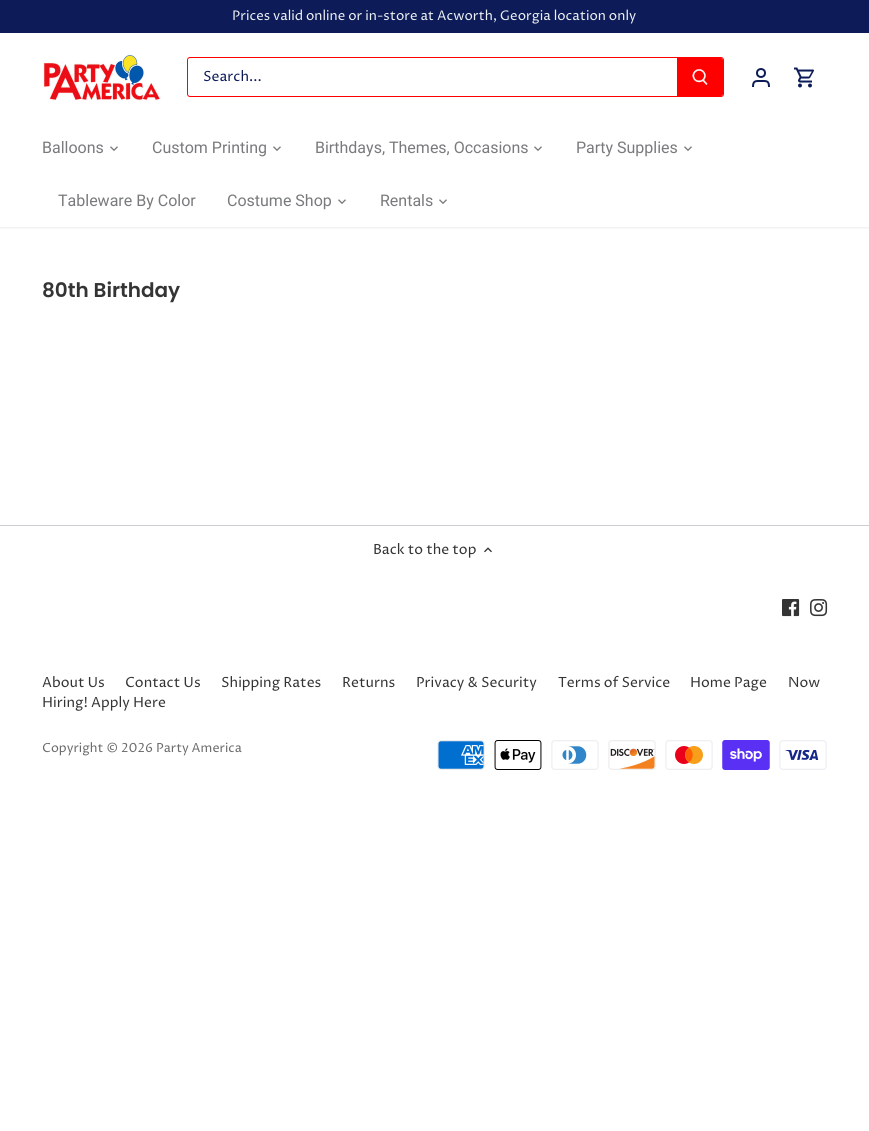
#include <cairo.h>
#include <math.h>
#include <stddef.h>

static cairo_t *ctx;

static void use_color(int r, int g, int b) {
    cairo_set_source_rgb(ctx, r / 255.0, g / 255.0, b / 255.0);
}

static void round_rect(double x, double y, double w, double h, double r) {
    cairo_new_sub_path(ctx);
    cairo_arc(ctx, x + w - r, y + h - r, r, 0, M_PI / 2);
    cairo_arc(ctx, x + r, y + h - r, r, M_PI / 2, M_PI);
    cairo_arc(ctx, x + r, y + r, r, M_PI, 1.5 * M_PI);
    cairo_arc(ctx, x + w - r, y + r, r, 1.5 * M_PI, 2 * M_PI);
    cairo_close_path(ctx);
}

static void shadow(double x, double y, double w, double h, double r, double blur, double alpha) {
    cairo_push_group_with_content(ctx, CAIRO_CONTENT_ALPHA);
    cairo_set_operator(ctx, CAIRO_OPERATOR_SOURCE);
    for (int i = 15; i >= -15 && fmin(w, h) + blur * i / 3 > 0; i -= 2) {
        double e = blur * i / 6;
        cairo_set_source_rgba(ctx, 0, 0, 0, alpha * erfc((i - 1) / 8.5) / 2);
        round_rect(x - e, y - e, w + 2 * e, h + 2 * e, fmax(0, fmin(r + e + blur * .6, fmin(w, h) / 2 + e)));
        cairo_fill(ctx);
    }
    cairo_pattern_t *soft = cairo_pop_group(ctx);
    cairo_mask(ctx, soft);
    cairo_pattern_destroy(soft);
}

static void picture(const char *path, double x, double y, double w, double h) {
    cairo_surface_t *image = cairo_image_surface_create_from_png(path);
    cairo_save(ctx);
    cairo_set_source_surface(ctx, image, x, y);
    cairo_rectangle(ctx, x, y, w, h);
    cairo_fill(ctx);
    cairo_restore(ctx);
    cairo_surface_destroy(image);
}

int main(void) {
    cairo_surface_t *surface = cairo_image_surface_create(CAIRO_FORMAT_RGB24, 869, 1131);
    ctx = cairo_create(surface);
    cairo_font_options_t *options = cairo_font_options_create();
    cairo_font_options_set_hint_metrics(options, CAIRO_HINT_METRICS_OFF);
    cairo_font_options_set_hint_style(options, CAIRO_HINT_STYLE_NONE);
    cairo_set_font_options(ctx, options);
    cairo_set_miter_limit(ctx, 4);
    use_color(255, 255, 255);
    cairo_paint(ctx);
    cairo_save(ctx);
    cairo_rectangle(ctx, 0, 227, 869, 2);
    cairo_clip(ctx);
    use_color(0, 0, 0);
    shadow(-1, 32, 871, 196, 0, 1.5, 0.08);
    cairo_restore(ctx);
    use_color(13, 28, 89);
    cairo_rectangle(ctx, 0, 0, 869, 33);
    cairo_fill(ctx);
    cairo_select_font_face(ctx, "Proza Libre", CAIRO_FONT_SLANT_NORMAL, CAIRO_FONT_WEIGHT_NORMAL);
    cairo_set_font_size(ctx, 13.3);
    use_color(238, 241, 244);
    cairo_move_to(ctx, 232, 20);
    cairo_show_text(ctx, "Prices valid online or in-store at Acworth, Georgia location only");
    picture("img1.png", 43, 53, 119, 48);
    round_rect(187.5, 57.5, 536, 39, 2.5);
    use_color(255, 0, 0);
    cairo_set_line_width(ctx, 1);
    cairo_stroke(ctx);
    use_color(255, 255, 255);
    cairo_new_path(ctx);
    cairo_move_to(ctx, 191, 58);
    cairo_line_to(ctx, 678, 58);
    cairo_line_to(ctx, 678, 96);
    cairo_line_to(ctx, 191, 96);
    cairo_curve_to(ctx, 189.5, 96, 188, 94.5, 188, 93);
    cairo_line_to(ctx, 188, 61);
    cairo_curve_to(ctx, 188, 59.5, 189.5, 58, 191, 58);
    cairo_close_path(ctx);
    cairo_fill(ctx);
    cairo_set_font_size(ctx, 14);
    use_color(13, 28, 89);
    cairo_move_to(ctx, 203, 81);
    cairo_show_text(ctx, "Search...");
    use_color(255, 0, 0);
    cairo_new_path(ctx);
    cairo_move_to(ctx, 677, 58);
    cairo_line_to(ctx, 721, 58);
    cairo_curve_to(ctx, 722, 58, 723, 59, 723, 60);
    cairo_line_to(ctx, 723, 94);
    cairo_curve_to(ctx, 723, 95, 722, 96, 721, 96);
    cairo_line_to(ctx, 677, 96);
    cairo_close_path(ctx);
    cairo_fill(ctx);
    picture("img2.png", 692, 69, 16, 16);
    cairo_arc(ctx, 761, 73, 4, 0, 2 * M_PI);
    use_color(13, 28, 89);
    cairo_set_line_width(ctx, 2);
    cairo_stroke(ctx);
    cairo_new_path(ctx);
    cairo_move_to(ctx, 769, 87);
    cairo_curve_to(ctx, 769, 80.5, 766.5, 81, 761, 81);
    cairo_curve_to(ctx, 755.5, 81, 753, 80.5, 753, 87);
    cairo_stroke(ctx);
    picture("img3.png", 794, 67, 20, 21);
    cairo_select_font_face(ctx, "Roboto", CAIRO_FONT_SLANT_NORMAL, CAIRO_FONT_WEIGHT_NORMAL);
    cairo_set_font_size(ctx, 16);
    use_color(120, 122, 124);
    cairo_move_to(ctx, 42, 153);
    cairo_show_text(ctx, "Balloons");
    picture("img4.png", 110, 146, 8, 5);
    cairo_move_to(ctx, 152, 153);
    cairo_show_text(ctx, "Custom Printing");
    picture("img4.png", 273, 146, 8, 5);
    cairo_move_to(ctx, 315, 153);
    cairo_show_text(ctx, "Birthdays, Themes, Occasions");
    picture("img4.png", 534, 146, 8, 5);
    cairo_move_to(ctx, 576, 153);
    cairo_show_text(ctx, "Party Supplies");
    picture("img4.png", 684, 146, 8, 5);
    cairo_move_to(ctx, 58, 206);
    cairo_show_text(ctx, "Tableware By Color");
    cairo_move_to(ctx, 227, 206);
    cairo_show_text(ctx, "Costume Shop");
    picture("img4.png", 338, 199, 8, 5);
    cairo_move_to(ctx, 380, 206);
    cairo_show_text(ctx, "Rentals");
    picture("img4.png", 439, 199, 8, 5);
    cairo_select_font_face(ctx, "Poppins SemiBold", CAIRO_FONT_SLANT_NORMAL, CAIRO_FONT_WEIGHT_NORMAL);
    cairo_set_font_size(ctx, 20);
    use_color(52, 52, 52);
    cairo_move_to(ctx, 42, 297);
    cairo_show_text(ctx, "80th Birthday");
    use_color(204, 207, 210);
    cairo_rectangle(ctx, 0, 525, 869, 1);
    cairo_fill(ctx);
    cairo_select_font_face(ctx, "Proza Libre", CAIRO_FONT_SLANT_NORMAL, CAIRO_FONT_WEIGHT_NORMAL);
    cairo_set_font_size(ctx, 14);
    use_color(52, 52, 52);
    cairo_move_to(ctx, 373, 554);
    cairo_show_text(ctx, "Back to the top");
    picture("img5.png", 484, 547, 8, 6);
    picture("img6.png", 782, 599, 18, 18);
    picture("img7.png", 810, 599, 18, 18);
    cairo_move_to(ctx, 42, 687);
    cairo_show_text(ctx, "About Us");
    cairo_move_to(ctx, 125, 687);
    cairo_show_text(ctx, "Contact Us");
    cairo_move_to(ctx, 221, 687);
    cairo_show_text(ctx, "Shipping Rates");
    cairo_move_to(ctx, 342, 687);
    cairo_show_text(ctx, "Returns");
    cairo_move_to(ctx, 416, 687);
    cairo_show_text(ctx, "Privacy & Security");
    cairo_move_to(ctx, 558, 687);
    cairo_show_text(ctx, "Terms of Service");
    cairo_move_to(ctx, 690, 687);
    cairo_show_text(ctx, "Home Page");
    cairo_move_to(ctx, 788, 687);
    cairo_show_text(ctx, "Now");
    cairo_move_to(ctx, 42, 707);
    cairo_show_text(ctx, "Hiring! Apply Here");
    cairo_set_font_size(ctx, 12.6);
    use_color(107, 107, 107);
    cairo_move_to(ctx, 42, 752);
    cairo_show_text(ctx, "Copyright © 2026 Party America");
    picture("img8.png", 437, 740, 48, 30);
    picture("img9.png", 494, 740, 48, 30);
    picture("img10.png", 551, 740, 48, 30);
    picture("img11.png", 608, 740, 48, 30);
    picture("img12.png", 665, 740, 48, 30);
    picture("img13.png", 722, 740, 48, 30);
    picture("img14.png", 779, 740, 48, 30);
    cairo_surface_write_to_png(surface, "result.png");
    cairo_font_options_destroy(options);
    cairo_destroy(ctx);
    cairo_surface_destroy(surface);
    return 0;
}
